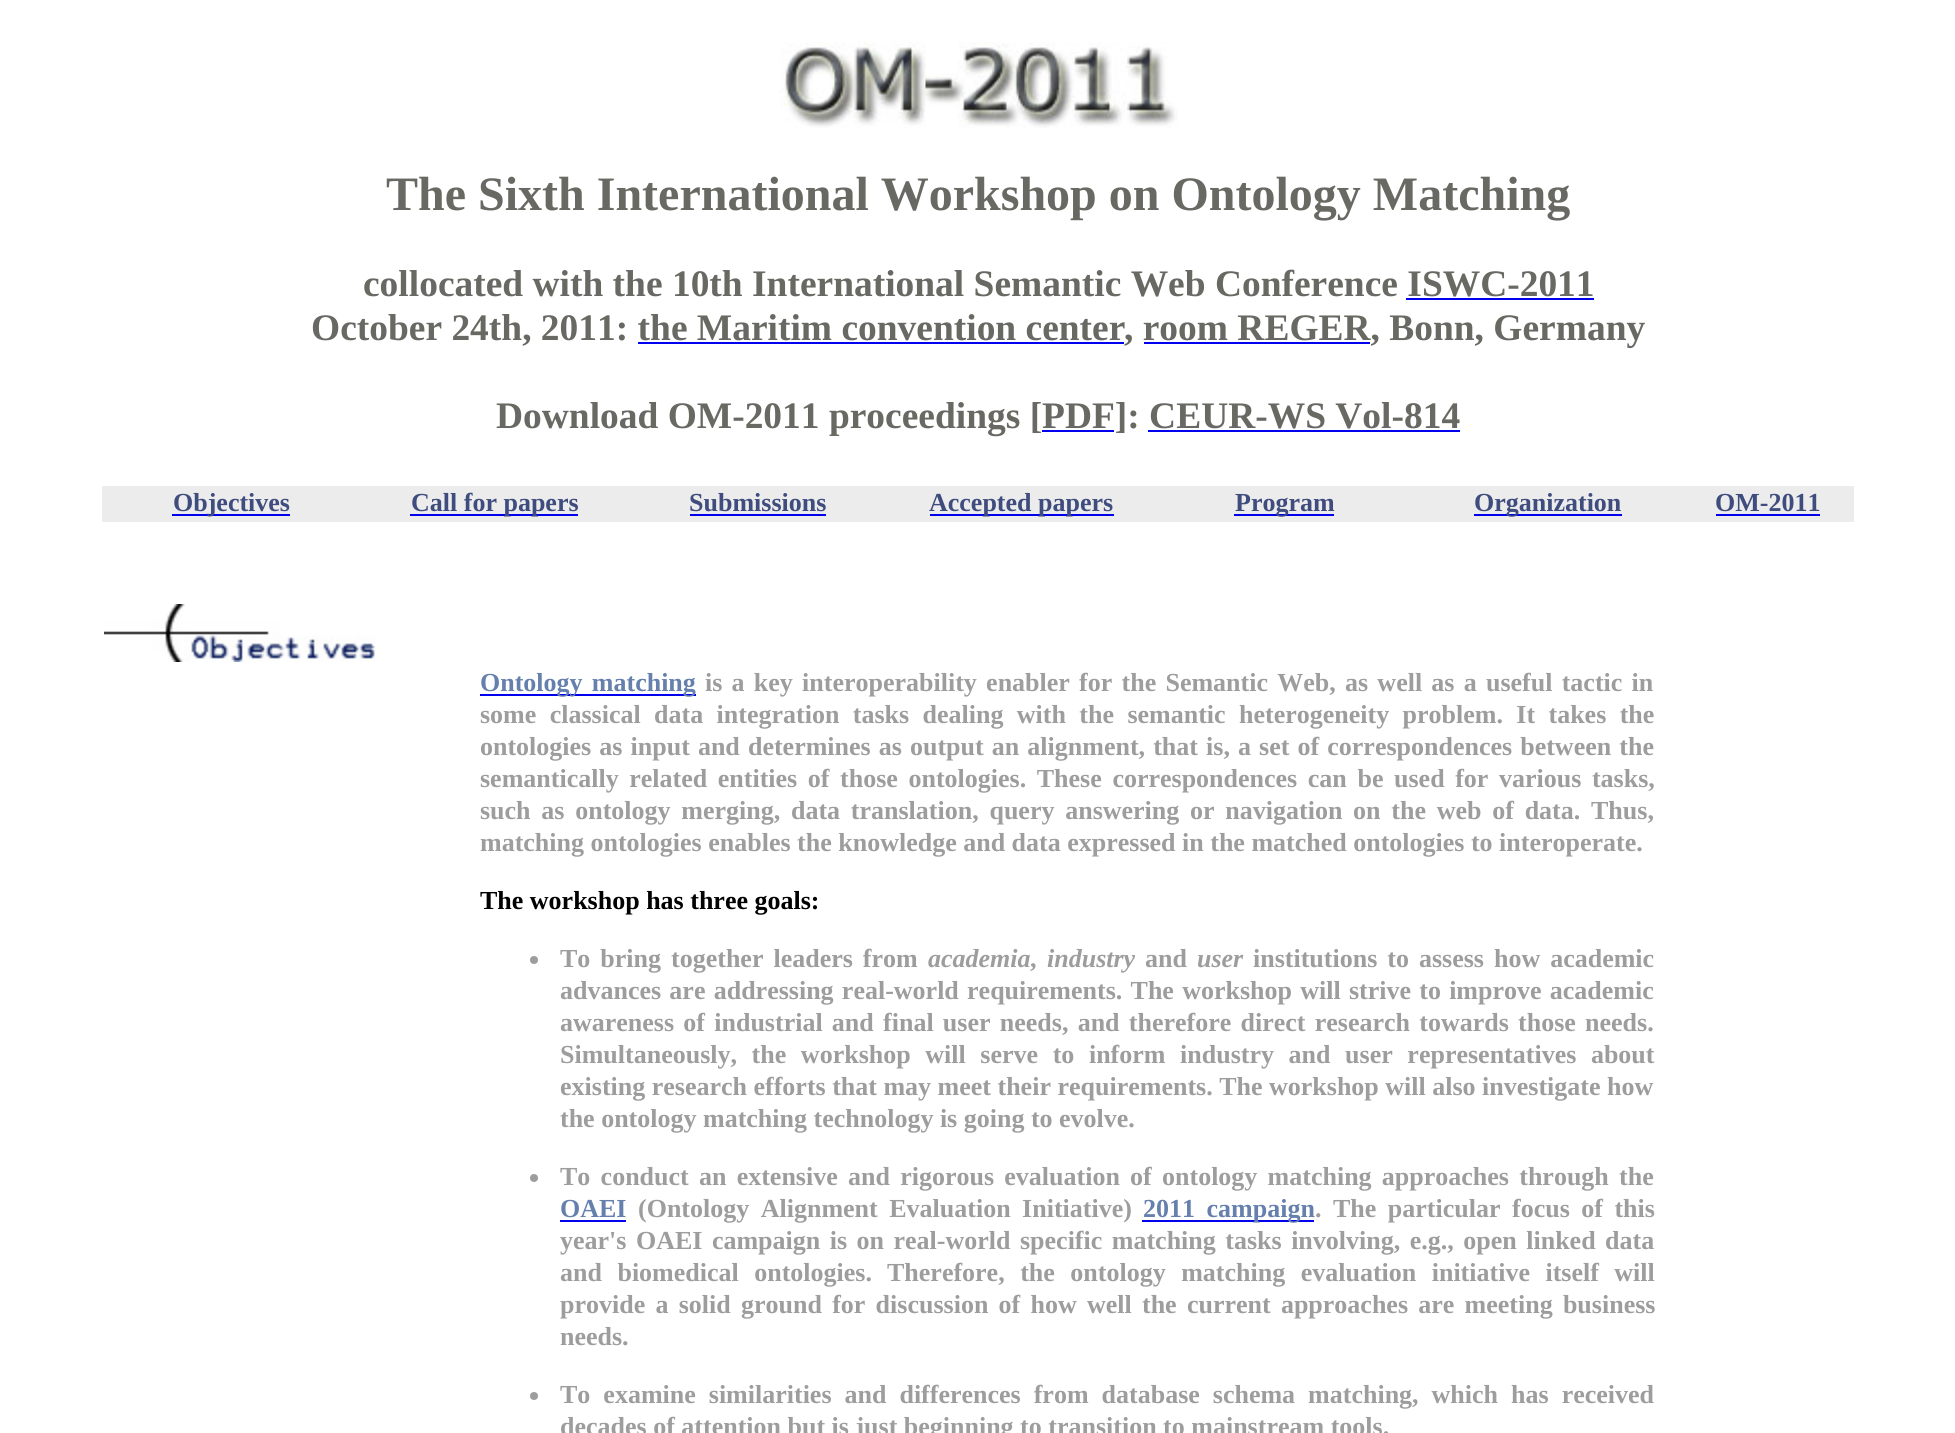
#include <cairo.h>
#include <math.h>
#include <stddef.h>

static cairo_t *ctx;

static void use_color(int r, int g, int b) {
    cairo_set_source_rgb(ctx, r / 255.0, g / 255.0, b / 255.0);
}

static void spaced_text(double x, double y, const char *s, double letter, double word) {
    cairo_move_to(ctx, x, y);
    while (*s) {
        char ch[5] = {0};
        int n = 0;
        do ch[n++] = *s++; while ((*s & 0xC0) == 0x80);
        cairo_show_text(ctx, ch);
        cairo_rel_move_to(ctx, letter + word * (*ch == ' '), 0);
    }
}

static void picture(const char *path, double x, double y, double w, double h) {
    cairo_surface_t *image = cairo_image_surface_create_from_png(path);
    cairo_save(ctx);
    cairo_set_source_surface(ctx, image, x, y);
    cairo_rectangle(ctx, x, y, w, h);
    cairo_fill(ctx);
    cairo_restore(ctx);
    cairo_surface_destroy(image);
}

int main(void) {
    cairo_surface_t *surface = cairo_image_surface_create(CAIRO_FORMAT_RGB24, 1955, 1433);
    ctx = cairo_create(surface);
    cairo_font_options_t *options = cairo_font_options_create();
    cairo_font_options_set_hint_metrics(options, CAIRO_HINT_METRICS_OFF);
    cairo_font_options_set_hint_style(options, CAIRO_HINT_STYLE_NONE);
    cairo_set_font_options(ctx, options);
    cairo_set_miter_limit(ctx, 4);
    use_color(255, 255, 255);
    cairo_paint(ctx);
    picture("img1.png", 780, 42, 398, 86);
    cairo_select_font_face(ctx, "Liberation Serif", CAIRO_FONT_SLANT_NORMAL, CAIRO_FONT_WEIGHT_BOLD);
    cairo_set_font_size(ctx, 48);
    use_color(103, 105, 98);
    cairo_move_to(ctx, 386, 210);
    cairo_show_text(ctx, "The Sixth International Workshop on Ontology Matching");
    cairo_set_font_size(ctx, 37.45);
    cairo_move_to(ctx, 363, 296);
    cairo_show_text(ctx, "collocated with the 10th International Semantic Web Conference ISWC-2011");
    use_color(0, 0, 238);
    cairo_rectangle(ctx, 1406, 298, 188, 2);
    cairo_fill(ctx);
    use_color(103, 105, 98);
    cairo_move_to(ctx, 311, 340);
    cairo_show_text(ctx, "October 24th, 2011: the Maritim convention center");
    cairo_move_to(ctx, 1124, 340);
    cairo_show_text(ctx, ", room REGER, Bonn, Germany");
    use_color(0, 0, 238);
    cairo_rectangle(ctx, 638, 342, 486, 2);
    cairo_fill(ctx);
    cairo_rectangle(ctx, 1144, 342, 226, 2);
    cairo_fill(ctx);
    use_color(103, 105, 98);
    cairo_move_to(ctx, 496, 428);
    cairo_show_text(ctx, "Download OM-2011 proceedings [");
    use_color(0, 0, 238);
    cairo_rectangle(ctx, 1042, 430, 72, 2);
    cairo_fill(ctx);
    use_color(103, 105, 98);
    cairo_move_to(ctx, 1042, 428);
    cairo_show_text(ctx, "PDF]: CEUR-WS Vol-814");
    use_color(0, 0, 238);
    cairo_rectangle(ctx, 1148, 430, 312, 2);
    cairo_fill(ctx);
    use_color(236, 236, 236);
    cairo_rectangle(ctx, 102, 486, 1752, 36);
    cairo_fill(ctx);
    use_color(0, 0, 238);
    cairo_rectangle(ctx, 172, 514, 118, 2);
    cairo_fill(ctx);
    cairo_set_font_size(ctx, 26);
    use_color(63, 77, 126);
    cairo_move_to(ctx, 173, 511);
    cairo_show_text(ctx, "Objectives");
    use_color(0, 0, 238);
    cairo_rectangle(ctx, 410, 514, 168, 2);
    cairo_fill(ctx);
    use_color(63, 77, 126);
    cairo_move_to(ctx, 411, 511);
    cairo_show_text(ctx, "Call for papers");
    cairo_move_to(ctx, 689, 511);
    cairo_show_text(ctx, "Submissions");
    use_color(0, 0, 238);
    cairo_rectangle(ctx, 690, 514, 136, 2);
    cairo_fill(ctx);
    cairo_rectangle(ctx, 930, 514, 184, 2);
    cairo_fill(ctx);
    use_color(63, 77, 126);
    cairo_move_to(ctx, 929, 511);
    cairo_show_text(ctx, "Accepted papers");
    use_color(0, 0, 238);
    cairo_rectangle(ctx, 1234, 514, 100, 2);
    cairo_fill(ctx);
    use_color(63, 77, 126);
    cairo_move_to(ctx, 1235, 511);
    cairo_show_text(ctx, "Program");
    use_color(0, 0, 238);
    cairo_rectangle(ctx, 1474, 514, 148, 2);
    cairo_fill(ctx);
    use_color(63, 77, 126);
    cairo_move_to(ctx, 1474, 511);
    cairo_show_text(ctx, "Organization");
    cairo_move_to(ctx, 1715, 511);
    cairo_show_text(ctx, "OM-2011");
    use_color(0, 0, 238);
    cairo_rectangle(ctx, 1716, 514, 104, 2);
    cairo_fill(ctx);
    picture("img2.png", 104, 604, 272, 58);
    cairo_rectangle(ctx, 480, 694, 216, 2);
    cairo_fill(ctx);
    use_color(102, 128, 174);
    spaced_text(480, 691, "Ontology matching", 0, 2.75);
    use_color(157, 157, 157);
    spaced_text(705, 691, "is a key interoperability enabler for the Semantic Web, as well as a useful tactic in", 0, 2.75);
    spaced_text(480, 723, "some classical data integration tasks dealing with the semantic heterogeneity problem. It takes the", 0, 6.9);
    spaced_text(480, 755, "ontologies as input and determines as output an alignment, that is, a set of correspondences between the", 0, 1.6);
    spaced_text(480, 787, "semantically related entities of those ontologies. These correspondences can be used for various tasks,", 0, 4.1);
    spaced_text(480, 819, "such as ontology merging, data translation, query answering or navigation on the web of data. Thus,", 0, 4.25);
    cairo_move_to(ctx, 480, 851);
    cairo_show_text(ctx, "matching ontologies enables the knowledge and data expressed in the matched ontologies to interoperate.");
    use_color(0, 0, 0);
    cairo_move_to(ctx, 480, 909);
    cairo_show_text(ctx, "The workshop has three goals:");
    use_color(157, 157, 157);
    cairo_new_path(ctx);
    cairo_arc(ctx, 534, 960, 4, 0, 2 * M_PI);
    cairo_fill(ctx);
    spaced_text(560, 967, "To bring together leaders from", 0, 3.5);
    cairo_select_font_face(ctx, "Liberation Serif", CAIRO_FONT_SLANT_ITALIC, CAIRO_FONT_WEIGHT_BOLD);
    cairo_move_to(ctx, 928, 967);
    cairo_show_text(ctx, "academia");
    cairo_select_font_face(ctx, "Liberation Serif", CAIRO_FONT_SLANT_NORMAL, CAIRO_FONT_WEIGHT_BOLD);
    cairo_move_to(ctx, 1030, 967);
    cairo_show_text(ctx, ",");
    cairo_select_font_face(ctx, "Liberation Serif", CAIRO_FONT_SLANT_ITALIC, CAIRO_FONT_WEIGHT_BOLD);
    cairo_move_to(ctx, 1047, 967);
    cairo_show_text(ctx, "industry");
    cairo_select_font_face(ctx, "Liberation Serif", CAIRO_FONT_SLANT_NORMAL, CAIRO_FONT_WEIGHT_BOLD);
    cairo_move_to(ctx, 1145, 967);
    cairo_show_text(ctx, "and");
    cairo_select_font_face(ctx, "Liberation Serif", CAIRO_FONT_SLANT_ITALIC, CAIRO_FONT_WEIGHT_BOLD);
    cairo_move_to(ctx, 1197, 967);
    cairo_show_text(ctx, "user");
    cairo_select_font_face(ctx, "Liberation Serif", CAIRO_FONT_SLANT_NORMAL, CAIRO_FONT_WEIGHT_BOLD);
    spaced_text(1253, 967, "institutions to assess how academic", 0, 3.5);
    spaced_text(560, 999, "advances are addressing real-world requirements. The workshop will strive to improve academic", 0, 1.75);
    spaced_text(560, 1031, "awareness of industrial and final user needs, and therefore direct research towards those needs.", 0, 2.75);
    spaced_text(560, 1063, "Simultaneously, the workshop will serve to inform industry and user representatives about", 0, 8.1);
    cairo_move_to(ctx, 560, 1095);
    cairo_show_text(ctx, "existing research efforts that may meet their requirements. The workshop will also investigate how");
    cairo_move_to(ctx, 560, 1127);
    cairo_show_text(ctx, "the ontology matching technology is going to evolve.");
    cairo_new_path(ctx);
    cairo_arc(ctx, 534, 1178, 4, 0, 2 * M_PI);
    cairo_fill(ctx);
    spaced_text(560, 1185, "To conduct an extensive and rigorous evaluation of ontology matching approaches through the", 0, 3.75);
    use_color(102, 128, 174);
    cairo_move_to(ctx, 560, 1217);
    cairo_show_text(ctx, "OAEI");
    use_color(0, 0, 238);
    cairo_rectangle(ctx, 560, 1220, 66, 2);
    cairo_fill(ctx);
    use_color(157, 157, 157);
    spaced_text(638, 1217, "(Ontology Alignment Evaluation Initiative)", 0, 5);
    use_color(0, 0, 238);
    cairo_rectangle(ctx, 1142, 1220, 172, 2);
    cairo_fill(ctx);
    use_color(102, 128, 174);
    spaced_text(1143, 1217, "2011 campaign", 0, 5);
    use_color(157, 157, 157);
    cairo_move_to(ctx, 1315, 1217);
    cairo_show_text(ctx, ".");
    spaced_text(1333, 1217, "The particular focus of this", 0, 5);
    spaced_text(560, 1249, "year's OAEI campaign is on real-world specific matching tasks involving, e.g., open linked data", 0, 3);
    spaced_text(560, 1281, "and biomedical ontologies.", 0, 9);
    spaced_text(887, 1281, "Therefore, the ontology matching evaluation initiative itself will", 0, 9);
    spaced_text(560, 1313, "provide a solid ground for discussion of how well the current approaches are meeting business", 0, 3.75);
    cairo_move_to(ctx, 560, 1345);
    cairo_show_text(ctx, "needs.");
    cairo_new_path(ctx);
    cairo_arc(ctx, 534, 1396, 4, 0, 2 * M_PI);
    cairo_fill(ctx);
    spaced_text(560, 1403, "To examine similarities and differences from database schema matching, which has received", 0, 6.5);
    cairo_move_to(ctx, 560, 1435);
    cairo_show_text(ctx, "decades of attention but is just beginning to transition to mainstream tools.");
    cairo_surface_write_to_png(surface, "result.png");
    cairo_font_options_destroy(options);
    cairo_destroy(ctx);
    cairo_surface_destroy(surface);
    return 0;
}
